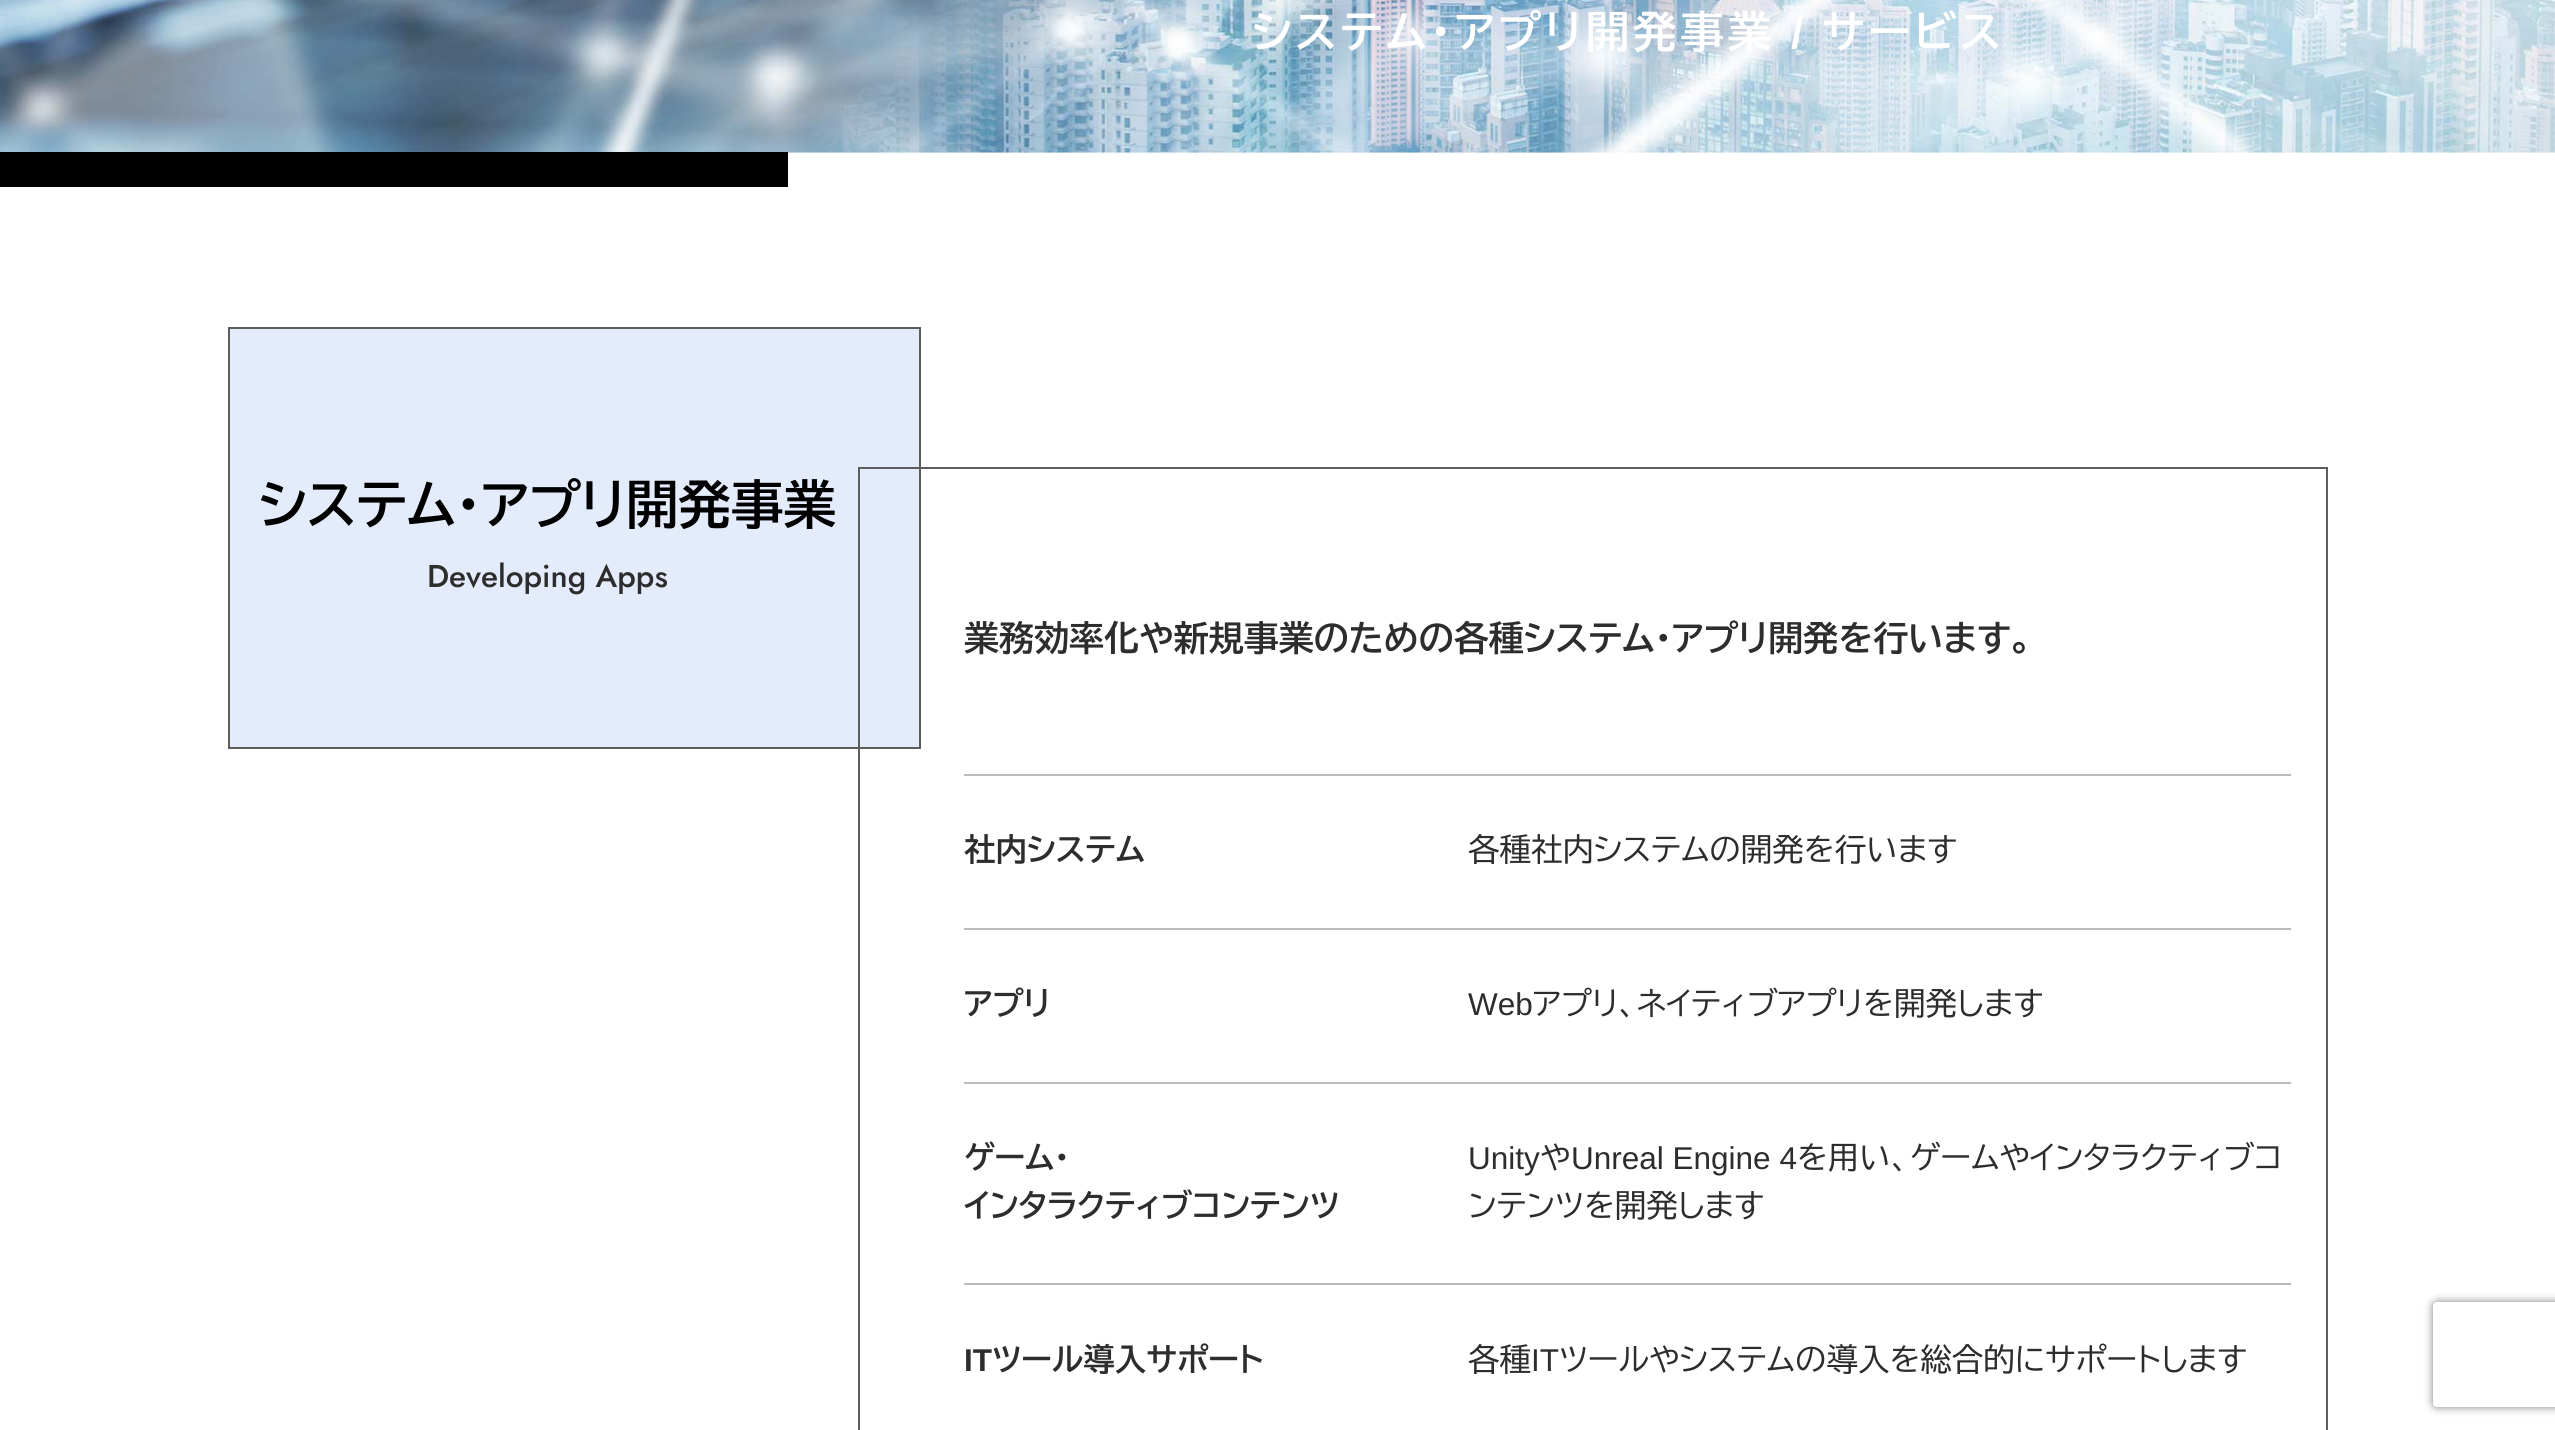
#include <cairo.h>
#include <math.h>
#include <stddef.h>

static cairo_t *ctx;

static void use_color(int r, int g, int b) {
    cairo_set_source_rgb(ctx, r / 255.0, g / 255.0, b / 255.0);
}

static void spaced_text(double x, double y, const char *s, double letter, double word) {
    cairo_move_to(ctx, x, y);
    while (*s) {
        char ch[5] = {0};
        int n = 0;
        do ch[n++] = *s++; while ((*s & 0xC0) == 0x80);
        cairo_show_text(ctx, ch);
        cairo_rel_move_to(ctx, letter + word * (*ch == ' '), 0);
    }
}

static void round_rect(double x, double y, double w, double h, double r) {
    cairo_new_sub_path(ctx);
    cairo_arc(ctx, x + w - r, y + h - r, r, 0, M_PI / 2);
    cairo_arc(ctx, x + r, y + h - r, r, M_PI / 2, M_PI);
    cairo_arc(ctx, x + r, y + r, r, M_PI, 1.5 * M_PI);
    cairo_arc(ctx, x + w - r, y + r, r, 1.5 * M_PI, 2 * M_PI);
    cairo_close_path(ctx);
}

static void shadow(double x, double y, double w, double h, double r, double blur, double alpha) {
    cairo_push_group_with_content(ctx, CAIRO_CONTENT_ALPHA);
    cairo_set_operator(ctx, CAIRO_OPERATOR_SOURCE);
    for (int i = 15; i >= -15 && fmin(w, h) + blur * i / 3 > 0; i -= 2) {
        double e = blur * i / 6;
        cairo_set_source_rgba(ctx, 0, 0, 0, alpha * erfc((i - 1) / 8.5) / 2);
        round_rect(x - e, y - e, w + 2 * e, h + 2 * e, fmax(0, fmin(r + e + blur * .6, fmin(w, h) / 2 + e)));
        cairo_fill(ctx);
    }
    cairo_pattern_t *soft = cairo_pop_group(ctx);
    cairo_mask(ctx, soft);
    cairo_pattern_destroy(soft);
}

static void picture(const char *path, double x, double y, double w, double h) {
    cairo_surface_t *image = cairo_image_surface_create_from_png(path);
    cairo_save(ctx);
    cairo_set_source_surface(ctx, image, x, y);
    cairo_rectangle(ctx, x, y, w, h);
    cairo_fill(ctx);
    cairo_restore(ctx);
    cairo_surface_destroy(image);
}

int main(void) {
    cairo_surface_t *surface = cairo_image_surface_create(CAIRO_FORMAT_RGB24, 2555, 1430);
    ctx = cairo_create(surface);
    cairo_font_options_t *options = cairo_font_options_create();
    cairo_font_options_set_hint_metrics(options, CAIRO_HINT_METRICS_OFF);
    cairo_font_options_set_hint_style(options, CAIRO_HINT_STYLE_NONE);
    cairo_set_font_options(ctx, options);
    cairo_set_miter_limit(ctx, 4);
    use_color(255, 255, 255);
    cairo_paint(ctx);
    picture("img1.png", 0, 0, 2555, 153);
    use_color(0, 0, 0);
    cairo_rectangle(ctx, 0, 152, 788, 35);
    cairo_fill(ctx);
    cairo_select_font_face(ctx, "BIZ UDPGothic", CAIRO_FONT_SLANT_NORMAL, CAIRO_FONT_WEIGHT_BOLD);
    cairo_set_font_size(ctx, 43.75);
    use_color(255, 255, 255);
    spaced_text(1252, 48, "システム・アプリ開発事業", 3.5, 0);
    cairo_select_font_face(ctx, "Liberation Sans", CAIRO_FONT_SLANT_NORMAL, CAIRO_FONT_WEIGHT_BOLD);
    spaced_text(1791, 48, "/", 3.5, 0);
    cairo_select_font_face(ctx, "BIZ UDPGothic", CAIRO_FONT_SLANT_NORMAL, CAIRO_FONT_WEIGHT_BOLD);
    spaced_text(1822, 48, "サービス", 3.5, 0);
    use_color(228, 236, 252);
    cairo_rectangle(ctx, 229, 328, 691, 420);
    cairo_fill_preserve(ctx);
    use_color(93, 93, 93);
    cairo_stroke(ctx);
    cairo_set_font_size(ctx, 52.5);
    use_color(0, 0, 0);
    cairo_move_to(ctx, 259, 524);
    cairo_show_text(ctx, "システム・アプリ開発事業");
    cairo_select_font_face(ctx, "Jost Medium", CAIRO_FONT_SLANT_NORMAL, CAIRO_FONT_WEIGHT_NORMAL);
    cairo_set_font_size(ctx, 31.5);
    use_color(46, 45, 45);
    cairo_move_to(ctx, 427, 587);
    cairo_show_text(ctx, "Developing Apps");
    cairo_rectangle(ctx, 859, 468, 1468, 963);
    use_color(93, 93, 93);
    cairo_stroke(ctx);
    cairo_select_font_face(ctx, "BIZ UDPGothic", CAIRO_FONT_SLANT_NORMAL, CAIRO_FONT_WEIGHT_BOLD);
    cairo_set_font_size(ctx, 35);
    use_color(46, 45, 45);
    cairo_move_to(ctx, 964, 651);
    cairo_show_text(ctx, "業務効率化や新規事業のための各種システム・アプリ開発を行います。");
    use_color(187, 187, 187);
    cairo_rectangle(ctx, 964, 774, 1327, 2);
    cairo_fill(ctx);
    cairo_rectangle(ctx, 964, 928, 1327, 2);
    cairo_fill(ctx);
    cairo_set_font_size(ctx, 31.5);
    use_color(46, 45, 45);
    cairo_move_to(ctx, 964, 861);
    cairo_show_text(ctx, "社内システム");
    cairo_select_font_face(ctx, "BIZ UDPGothic", CAIRO_FONT_SLANT_NORMAL, CAIRO_FONT_WEIGHT_NORMAL);
    cairo_move_to(ctx, 1468, 861);
    cairo_show_text(ctx, "各種社内システムの開発を行います");
    use_color(187, 187, 187);
    cairo_rectangle(ctx, 964, 1082, 1327, 2);
    cairo_fill(ctx);
    cairo_select_font_face(ctx, "BIZ UDPGothic", CAIRO_FONT_SLANT_NORMAL, CAIRO_FONT_WEIGHT_BOLD);
    use_color(46, 45, 45);
    cairo_move_to(ctx, 964, 1015);
    cairo_show_text(ctx, "アプリ");
    cairo_select_font_face(ctx, "Liberation Sans", CAIRO_FONT_SLANT_NORMAL, CAIRO_FONT_WEIGHT_NORMAL);
    cairo_move_to(ctx, 1468, 1015);
    cairo_show_text(ctx, "Web");
    cairo_select_font_face(ctx, "BIZ UDPGothic", CAIRO_FONT_SLANT_NORMAL, CAIRO_FONT_WEIGHT_NORMAL);
    cairo_move_to(ctx, 1533, 1015);
    cairo_show_text(ctx, "アプリ、ネイティブアプリを開発します");
    use_color(187, 187, 187);
    cairo_rectangle(ctx, 964, 1283, 1327, 2);
    cairo_fill(ctx);
    cairo_select_font_face(ctx, "BIZ UDPGothic", CAIRO_FONT_SLANT_NORMAL, CAIRO_FONT_WEIGHT_BOLD);
    use_color(46, 45, 45);
    cairo_move_to(ctx, 964, 1169);
    cairo_show_text(ctx, "ゲーム・");
    cairo_move_to(ctx, 964, 1217);
    cairo_show_text(ctx, "インタラクティブコンテンツ");
    cairo_select_font_face(ctx, "Liberation Sans", CAIRO_FONT_SLANT_NORMAL, CAIRO_FONT_WEIGHT_NORMAL);
    cairo_move_to(ctx, 1468, 1169);
    cairo_show_text(ctx, "Unity");
    cairo_select_font_face(ctx, "BIZ UDPGothic", CAIRO_FONT_SLANT_NORMAL, CAIRO_FONT_WEIGHT_NORMAL);
    cairo_move_to(ctx, 1540, 1169);
    cairo_show_text(ctx, "や");
    cairo_select_font_face(ctx, "Liberation Sans", CAIRO_FONT_SLANT_NORMAL, CAIRO_FONT_WEIGHT_NORMAL);
    cairo_move_to(ctx, 1571, 1169);
    cairo_show_text(ctx, "Unreal Engine 4");
    cairo_select_font_face(ctx, "BIZ UDPGothic", CAIRO_FONT_SLANT_NORMAL, CAIRO_FONT_WEIGHT_NORMAL);
    cairo_move_to(ctx, 1797, 1169);
    cairo_show_text(ctx, "を用い、ゲームやインタラクティブコ");
    cairo_move_to(ctx, 1468, 1217);
    cairo_show_text(ctx, "ンテンツを開発します");
    cairo_select_font_face(ctx, "Liberation Sans", CAIRO_FONT_SLANT_NORMAL, CAIRO_FONT_WEIGHT_BOLD);
    cairo_move_to(ctx, 964, 1371);
    cairo_show_text(ctx, "IT");
    cairo_select_font_face(ctx, "BIZ UDPGothic", CAIRO_FONT_SLANT_NORMAL, CAIRO_FONT_WEIGHT_BOLD);
    cairo_move_to(ctx, 992, 1371);
    cairo_show_text(ctx, "ツール導入サポート");
    cairo_select_font_face(ctx, "BIZ UDPGothic", CAIRO_FONT_SLANT_NORMAL, CAIRO_FONT_WEIGHT_NORMAL);
    cairo_move_to(ctx, 1468, 1371);
    cairo_show_text(ctx, "各種");
    cairo_select_font_face(ctx, "Liberation Sans", CAIRO_FONT_SLANT_NORMAL, CAIRO_FONT_WEIGHT_NORMAL);
    cairo_move_to(ctx, 1531, 1371);
    cairo_show_text(ctx, "IT");
    cairo_select_font_face(ctx, "BIZ UDPGothic", CAIRO_FONT_SLANT_NORMAL, CAIRO_FONT_WEIGHT_NORMAL);
    cairo_move_to(ctx, 1559, 1371);
    cairo_show_text(ctx, "ツールやシステムの導入を総合的にサポートします");
    cairo_save(ctx);
    cairo_set_fill_rule(ctx, CAIRO_FILL_RULE_EVEN_ODD);
    cairo_new_path(ctx);
    cairo_move_to(ctx, 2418, 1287);
    cairo_line_to(ctx, 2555, 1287);
    cairo_line_to(ctx, 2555, 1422);
    cairo_line_to(ctx, 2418, 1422);
    cairo_close_path(ctx);
    cairo_move_to(ctx, 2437, 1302);
    cairo_line_to(ctx, 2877, 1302);
    cairo_curve_to(ctx, 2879, 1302, 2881, 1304, 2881, 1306);
    cairo_line_to(ctx, 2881, 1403);
    cairo_curve_to(ctx, 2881, 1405, 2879, 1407, 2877, 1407);
    cairo_line_to(ctx, 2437, 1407);
    cairo_curve_to(ctx, 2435, 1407, 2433, 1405, 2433, 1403);
    cairo_line_to(ctx, 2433, 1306);
    cairo_curve_to(ctx, 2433, 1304, 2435, 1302, 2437, 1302);
    cairo_close_path(ctx);
    cairo_clip(ctx);
    use_color(128, 128, 128);
    shadow(2433, 1302, 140, 105, 4, 4.5, 1);
    cairo_restore(ctx);
    cairo_surface_write_to_png(surface, "result.png");
    cairo_font_options_destroy(options);
    cairo_destroy(ctx);
    cairo_surface_destroy(surface);
    return 0;
}
